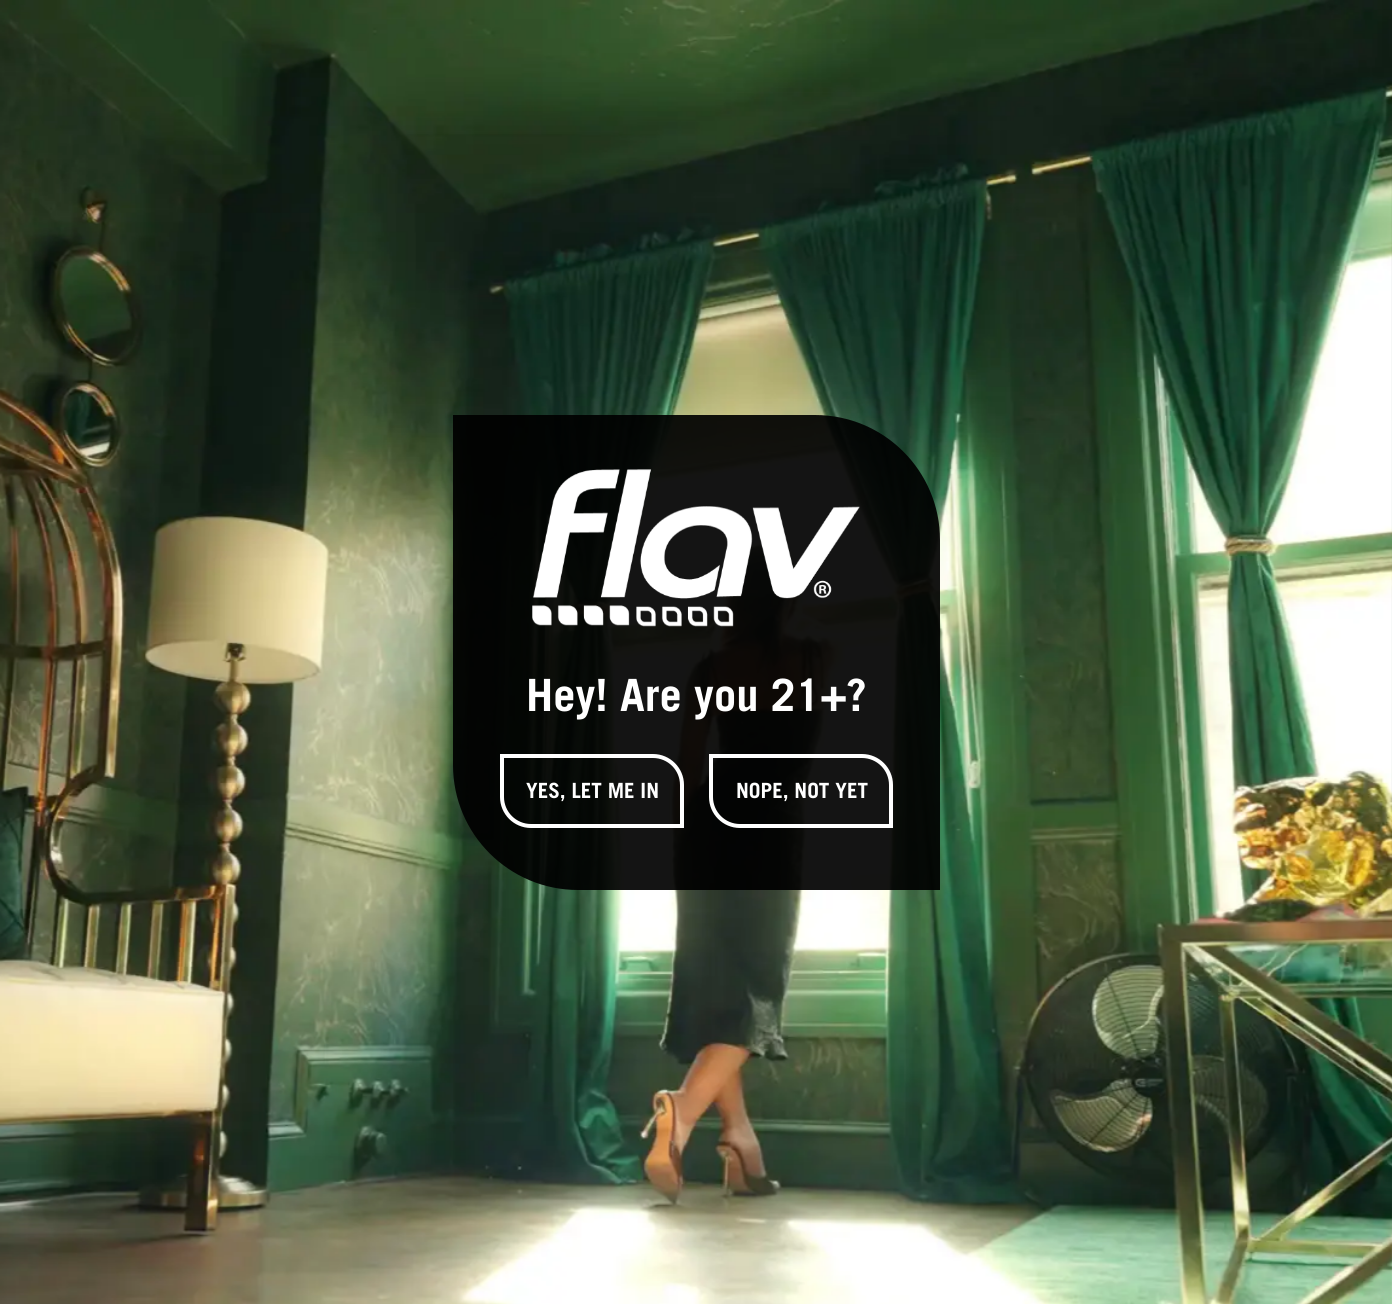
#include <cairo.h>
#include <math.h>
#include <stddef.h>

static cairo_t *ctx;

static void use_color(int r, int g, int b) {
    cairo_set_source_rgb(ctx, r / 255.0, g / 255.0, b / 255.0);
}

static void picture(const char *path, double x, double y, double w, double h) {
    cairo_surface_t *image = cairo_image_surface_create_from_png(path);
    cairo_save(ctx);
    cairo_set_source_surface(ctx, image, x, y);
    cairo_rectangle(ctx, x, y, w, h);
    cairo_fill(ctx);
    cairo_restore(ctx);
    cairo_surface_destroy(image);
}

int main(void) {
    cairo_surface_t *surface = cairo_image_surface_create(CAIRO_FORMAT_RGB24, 1392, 1304);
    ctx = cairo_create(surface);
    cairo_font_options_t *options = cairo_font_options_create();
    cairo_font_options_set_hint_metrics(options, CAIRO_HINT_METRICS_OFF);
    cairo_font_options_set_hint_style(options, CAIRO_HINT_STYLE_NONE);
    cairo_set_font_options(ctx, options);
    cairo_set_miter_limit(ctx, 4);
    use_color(255, 255, 255);
    cairo_paint(ctx);
    picture("img1.png", 1391, 0, 1, 1304);
    picture("img2.png", 0, 0, 1392, 1304);
    cairo_set_source_rgba(ctx, 0, 0, 0, 0.92);
    cairo_new_path(ctx);
    cairo_move_to(ctx, 453, 415);
    cairo_line_to(ctx, 815, 415);
    cairo_curve_to(ctx, 884, 415, 940, 471, 940, 540);
    cairo_line_to(ctx, 940, 890);
    cairo_line_to(ctx, 578, 890);
    cairo_curve_to(ctx, 509, 890, 453, 834, 453, 765);
    cairo_close_path(ctx);
    cairo_fill(ctx);
    picture("img3.png", 532, 469, 328, 158);
    cairo_select_font_face(ctx, "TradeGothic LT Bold", CAIRO_FONT_SLANT_NORMAL, CAIRO_FONT_WEIGHT_BOLD);
    cairo_set_font_size(ctx, 44.5);
    use_color(255, 255, 255);
    cairo_move_to(ctx, 526, 711);
    cairo_show_text(ctx, "Hey! Are you 21+?");
    cairo_new_path(ctx);
    cairo_move_to(ctx, 502, 756);
    cairo_line_to(ctx, 653, 756);
    cairo_curve_to(ctx, 669, 756, 682, 769, 682, 785);
    cairo_line_to(ctx, 682, 826);
    cairo_line_to(ctx, 531, 826);
    cairo_curve_to(ctx, 515, 826, 502, 813, 502, 797);
    cairo_close_path(ctx);
    cairo_set_line_width(ctx, 4);
    cairo_stroke(ctx);
    cairo_set_font_size(ctx, 21);
    cairo_move_to(ctx, 526, 798);
    cairo_show_text(ctx, "YES, LET ME IN");
    cairo_new_path(ctx);
    cairo_move_to(ctx, 711, 756);
    cairo_line_to(ctx, 862, 756);
    cairo_curve_to(ctx, 878, 756, 891, 769, 891, 785);
    cairo_line_to(ctx, 891, 826);
    cairo_line_to(ctx, 740, 826);
    cairo_curve_to(ctx, 724, 826, 711, 813, 711, 797);
    cairo_close_path(ctx);
    cairo_stroke(ctx);
    cairo_move_to(ctx, 736, 798);
    cairo_show_text(ctx, "NOPE, NOT YET");
    cairo_surface_write_to_png(surface, "result.png");
    cairo_font_options_destroy(options);
    cairo_destroy(ctx);
    cairo_surface_destroy(surface);
    return 0;
}
